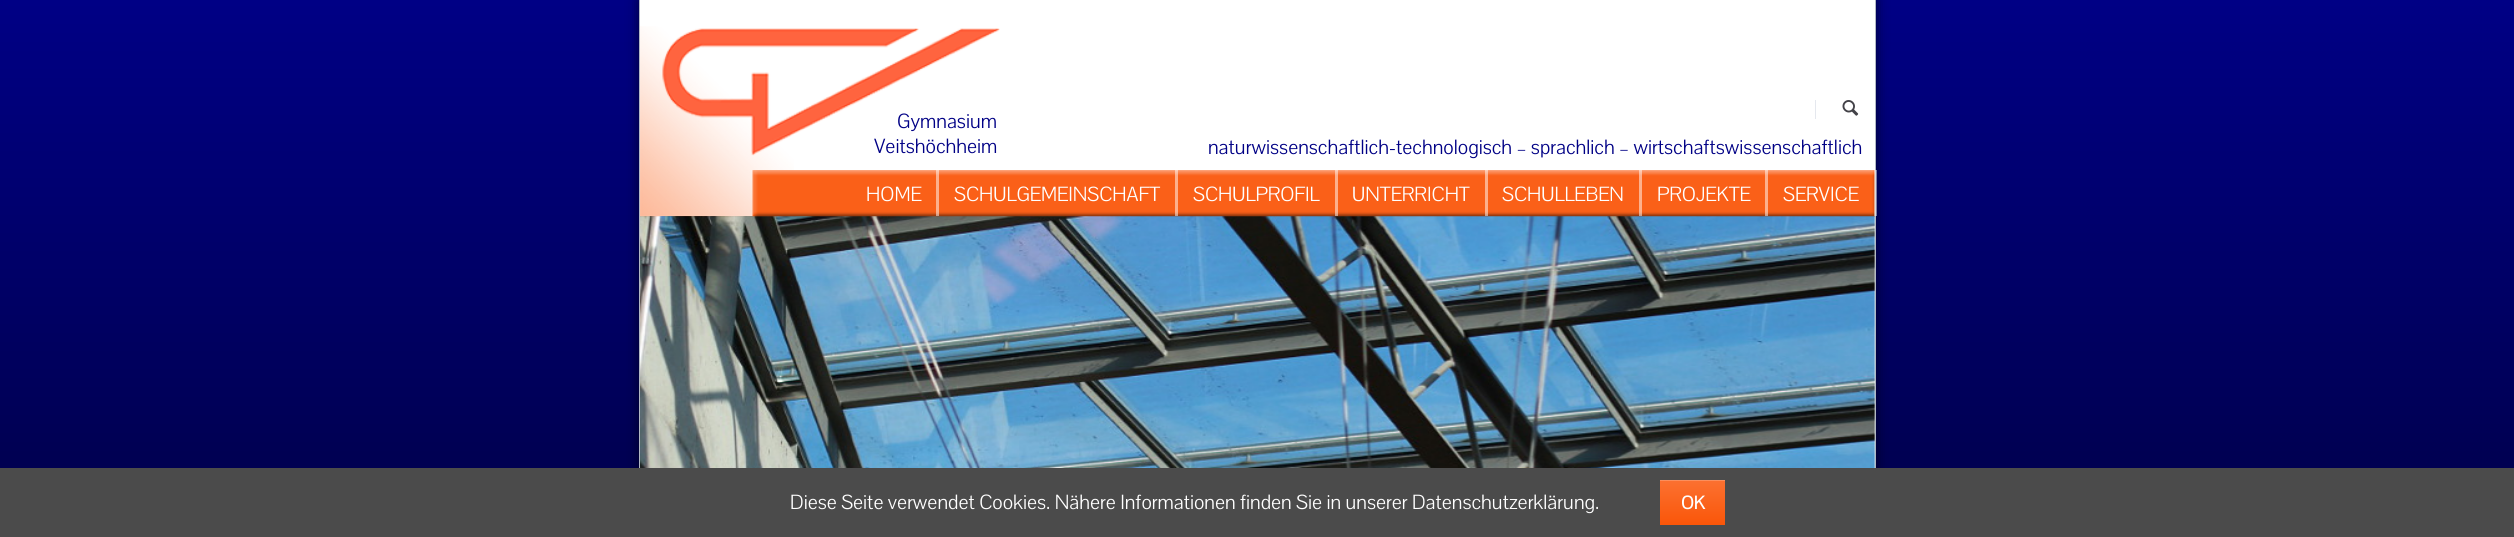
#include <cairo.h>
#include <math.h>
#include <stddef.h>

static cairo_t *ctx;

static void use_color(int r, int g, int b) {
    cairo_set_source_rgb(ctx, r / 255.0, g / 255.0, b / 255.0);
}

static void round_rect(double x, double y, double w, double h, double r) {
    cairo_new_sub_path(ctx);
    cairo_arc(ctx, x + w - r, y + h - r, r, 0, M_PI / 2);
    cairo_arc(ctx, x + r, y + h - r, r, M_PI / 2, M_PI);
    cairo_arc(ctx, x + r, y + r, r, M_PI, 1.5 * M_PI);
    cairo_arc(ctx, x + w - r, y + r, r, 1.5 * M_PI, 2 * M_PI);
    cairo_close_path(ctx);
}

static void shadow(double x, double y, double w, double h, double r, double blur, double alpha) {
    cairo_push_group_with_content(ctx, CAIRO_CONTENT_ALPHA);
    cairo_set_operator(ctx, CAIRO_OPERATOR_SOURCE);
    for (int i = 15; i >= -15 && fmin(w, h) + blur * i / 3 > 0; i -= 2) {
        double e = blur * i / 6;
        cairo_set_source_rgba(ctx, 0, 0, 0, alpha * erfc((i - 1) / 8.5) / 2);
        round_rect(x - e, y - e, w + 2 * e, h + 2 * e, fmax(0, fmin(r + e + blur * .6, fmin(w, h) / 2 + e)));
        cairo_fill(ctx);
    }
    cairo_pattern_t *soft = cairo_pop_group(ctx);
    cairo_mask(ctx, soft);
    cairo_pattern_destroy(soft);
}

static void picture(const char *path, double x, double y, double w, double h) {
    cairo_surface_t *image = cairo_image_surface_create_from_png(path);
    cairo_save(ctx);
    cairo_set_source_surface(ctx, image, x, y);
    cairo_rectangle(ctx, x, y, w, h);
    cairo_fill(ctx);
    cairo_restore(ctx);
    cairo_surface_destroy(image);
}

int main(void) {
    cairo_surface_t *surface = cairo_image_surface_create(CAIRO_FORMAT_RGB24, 2514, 537);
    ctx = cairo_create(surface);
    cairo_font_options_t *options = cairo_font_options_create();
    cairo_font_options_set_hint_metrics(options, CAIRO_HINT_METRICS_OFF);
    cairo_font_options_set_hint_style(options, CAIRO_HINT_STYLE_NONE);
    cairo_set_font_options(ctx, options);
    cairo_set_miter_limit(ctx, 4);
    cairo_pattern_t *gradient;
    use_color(255, 255, 255);
    cairo_paint(ctx);
    gradient = cairo_pattern_create_linear(1258, 0, 1258, 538);
    cairo_pattern_add_color_stop_rgba(gradient, 0, 0, 0, 0.522, 1);
    cairo_pattern_add_color_stop_rgba(gradient, 1, 0, 0, 0.29, 1);
    cairo_set_source(ctx, gradient);
    cairo_pattern_destroy(gradient);
    cairo_rectangle(ctx, 0, 0, 2514, 468);
    cairo_fill(ctx);
    use_color(0, 0, 0);
    shadow(639, 0, 1237, 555, 0, 6, 0.6);
    use_color(255, 255, 255);
    cairo_rectangle(ctx, 640, 0, 1235, 468);
    cairo_fill(ctx);
    use_color(178, 185, 196);
    cairo_rectangle(ctx, 1875, 0, 1, 468);
    cairo_fill(ctx);
    cairo_rectangle(ctx, 639, 0, 1, 468);
    cairo_fill(ctx);
    picture("img5.png", 640, 216, 1235, 252);
    picture("img1.png", 640, 26, 154, 191);
    picture("img2.png", 662, 28, 338, 128);
    use_color(229, 232, 238);
    cairo_rectangle(ctx, 1815, 100, 1, 19);
    cairo_fill(ctx);
    picture("img3.png", 1842, 100, 17, 16);
    cairo_select_font_face(ctx, "Pontano Sans", CAIRO_FONT_SLANT_NORMAL, CAIRO_FONT_WEIGHT_NORMAL);
    cairo_set_font_size(ctx, 20);
    use_color(0, 0, 133);
    cairo_move_to(ctx, 897, 128);
    cairo_show_text(ctx, "Gymnasium");
    cairo_move_to(ctx, 874, 153);
    cairo_show_text(ctx, "Veitshöchheim");
    cairo_move_to(ctx, 1208, 154);
    cairo_show_text(ctx, "naturwissenschaftlich-technologisch – sprachlich – wirtschaftswissenschaftlich");
    picture("img4.png", 752, 170, 1123, 47);
    cairo_set_source_rgba(ctx, 1, 1, 1, 0.5);
    cairo_rectangle(ctx, 936, 170, 3, 46);
    cairo_fill(ctx);
    use_color(255, 255, 255);
    cairo_move_to(ctx, 866, 201);
    cairo_show_text(ctx, "HOME");
    cairo_set_source_rgba(ctx, 1, 1, 1, 0.5);
    cairo_rectangle(ctx, 1175, 170, 3, 46);
    cairo_fill(ctx);
    use_color(255, 255, 255);
    cairo_move_to(ctx, 954, 201);
    cairo_show_text(ctx, "SCHULGEMEINSCHAFT");
    cairo_set_source_rgba(ctx, 1, 1, 1, 0.5);
    cairo_rectangle(ctx, 1335, 170, 3, 46);
    cairo_fill(ctx);
    use_color(255, 255, 255);
    cairo_move_to(ctx, 1193, 201);
    cairo_show_text(ctx, "SCHULPROFIL");
    cairo_set_source_rgba(ctx, 1, 1, 1, 0.5);
    cairo_rectangle(ctx, 1485, 170, 3, 46);
    cairo_fill(ctx);
    use_color(255, 255, 255);
    cairo_move_to(ctx, 1352, 201);
    cairo_show_text(ctx, "UNTERRICHT");
    cairo_set_source_rgba(ctx, 1, 1, 1, 0.5);
    cairo_rectangle(ctx, 1639, 170, 3, 46);
    cairo_fill(ctx);
    use_color(255, 255, 255);
    cairo_move_to(ctx, 1502, 201);
    cairo_show_text(ctx, "SCHULLEBEN");
    cairo_set_source_rgba(ctx, 1, 1, 1, 0.5);
    cairo_rectangle(ctx, 1765, 170, 3, 46);
    cairo_fill(ctx);
    use_color(255, 255, 255);
    cairo_move_to(ctx, 1657, 201);
    cairo_show_text(ctx, "PROJEKTE");
    cairo_set_source_rgba(ctx, 1, 1, 1, 0.5);
    cairo_rectangle(ctx, 1874, 170, 3, 46);
    cairo_fill(ctx);
    use_color(255, 255, 255);
    cairo_move_to(ctx, 1783, 201);
    cairo_show_text(ctx, "SERVICE");
    use_color(75, 75, 75);
    cairo_rectangle(ctx, 0, 468, 2514, 69);
    cairo_fill(ctx);
    use_color(255, 255, 255);
    cairo_move_to(ctx, 790, 509);
    cairo_show_text(ctx, "Diese Seite verwendet Cookies. Nähere Informationen finden Sie in unserer Datenschutzerklärung.");
    gradient = cairo_pattern_create_linear(1693, 480, 1693, 525);
    cairo_pattern_add_color_stop_rgba(gradient, 0, 0.984, 0.443, 0.192, 1);
    cairo_pattern_add_color_stop_rgba(gradient, 1, 0.98, 0.337, 0.035, 1);
    cairo_set_source(ctx, gradient);
    cairo_pattern_destroy(gradient);
    cairo_rectangle(ctx, 1660, 481, 65, 44);
    cairo_fill(ctx);
    use_color(251, 143, 93);
    cairo_rectangle(ctx, 1660, 480, 65, 1);
    cairo_fill(ctx);
    cairo_select_font_face(ctx, "Pontano Sans", CAIRO_FONT_SLANT_NORMAL, CAIRO_FONT_WEIGHT_BOLD);
    cairo_set_font_size(ctx, 18);
    use_color(255, 255, 255);
    cairo_move_to(ctx, 1681, 509);
    cairo_show_text(ctx, "OK");
    cairo_surface_write_to_png(surface, "result.png");
    cairo_font_options_destroy(options);
    cairo_destroy(ctx);
    cairo_surface_destroy(surface);
    return 0;
}
